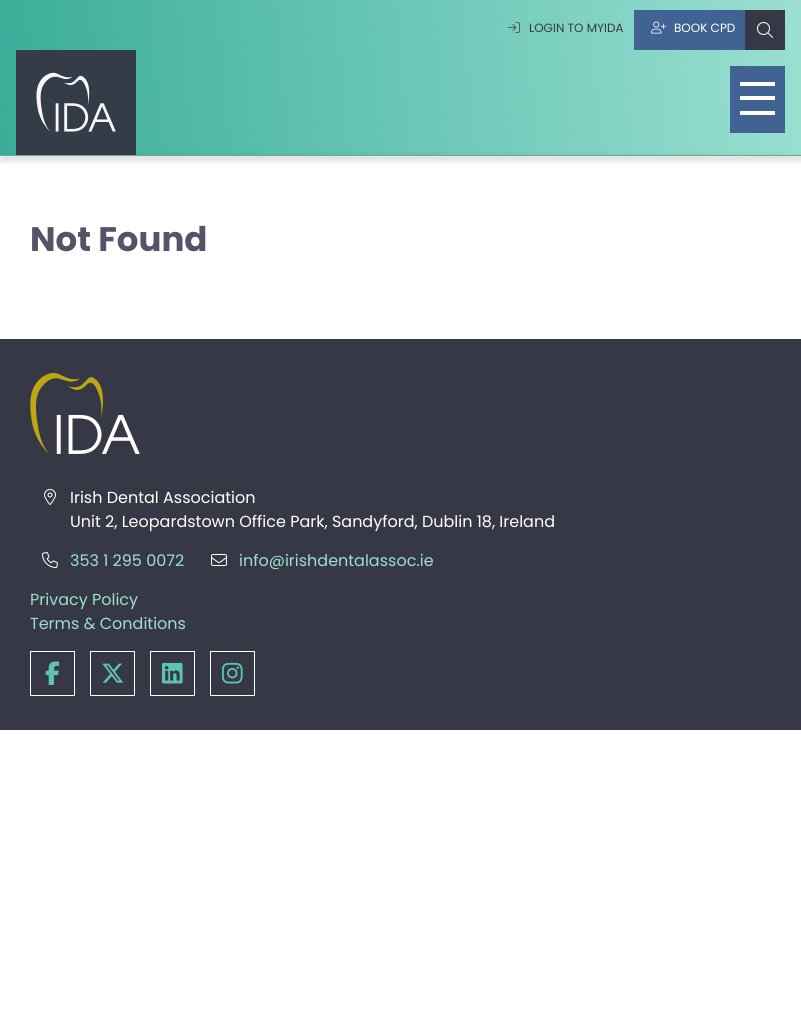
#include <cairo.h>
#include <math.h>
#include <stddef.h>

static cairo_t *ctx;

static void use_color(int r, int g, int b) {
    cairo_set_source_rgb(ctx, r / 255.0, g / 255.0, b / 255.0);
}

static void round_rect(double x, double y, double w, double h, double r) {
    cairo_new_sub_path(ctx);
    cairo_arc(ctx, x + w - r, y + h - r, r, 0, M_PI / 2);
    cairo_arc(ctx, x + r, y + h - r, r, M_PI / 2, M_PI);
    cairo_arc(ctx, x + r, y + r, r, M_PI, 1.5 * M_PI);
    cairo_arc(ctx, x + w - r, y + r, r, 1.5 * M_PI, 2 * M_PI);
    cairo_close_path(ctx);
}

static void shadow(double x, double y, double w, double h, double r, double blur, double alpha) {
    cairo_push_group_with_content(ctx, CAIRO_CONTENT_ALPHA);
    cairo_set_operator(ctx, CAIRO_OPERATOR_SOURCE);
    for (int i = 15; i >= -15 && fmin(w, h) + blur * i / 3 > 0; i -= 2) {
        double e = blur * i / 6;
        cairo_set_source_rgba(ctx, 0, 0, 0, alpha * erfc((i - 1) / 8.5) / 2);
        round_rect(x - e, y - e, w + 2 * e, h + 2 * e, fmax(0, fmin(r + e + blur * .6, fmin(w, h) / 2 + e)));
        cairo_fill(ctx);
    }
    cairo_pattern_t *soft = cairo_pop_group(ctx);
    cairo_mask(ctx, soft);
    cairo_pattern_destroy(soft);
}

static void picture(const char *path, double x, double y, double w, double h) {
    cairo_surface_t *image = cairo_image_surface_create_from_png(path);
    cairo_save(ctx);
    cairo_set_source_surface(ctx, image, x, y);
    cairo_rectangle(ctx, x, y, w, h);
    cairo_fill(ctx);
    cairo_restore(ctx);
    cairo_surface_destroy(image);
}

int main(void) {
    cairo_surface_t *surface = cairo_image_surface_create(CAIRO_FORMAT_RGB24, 801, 1023);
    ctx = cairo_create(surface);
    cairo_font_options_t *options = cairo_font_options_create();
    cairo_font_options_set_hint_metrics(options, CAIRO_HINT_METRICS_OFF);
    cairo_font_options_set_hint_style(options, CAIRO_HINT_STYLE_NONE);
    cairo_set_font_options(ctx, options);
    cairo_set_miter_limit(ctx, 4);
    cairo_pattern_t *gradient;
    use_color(255, 255, 255);
    cairo_paint(ctx);
    gradient = cairo_pattern_create_linear(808, 7.4, -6.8, 79);
    cairo_pattern_add_color_stop_rgba(gradient, 0, 0.608, 0.878, 0.824, 1);
    cairo_pattern_add_color_stop_rgba(gradient, 1, 0.227, 0.678, 0.6, 1);
    cairo_set_source(ctx, gradient);
    cairo_pattern_destroy(gradient);
    cairo_rectangle(ctx, 0, 0, 801, 155);
    cairo_fill(ctx);
    cairo_save(ctx);
    cairo_rectangle(ctx, 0, 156, 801, 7);
    cairo_clip(ctx);
    use_color(0, 0, 0);
    shadow(0, -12, 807, 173, 0, 4, 0.07);
    cairo_restore(ctx);
    picture("img1.png", 508, 22, 12, 11);
    cairo_select_font_face(ctx, "Poppins", CAIRO_FONT_SLANT_NORMAL, CAIRO_FONT_WEIGHT_NORMAL);
    cairo_set_font_size(ctx, 12);
    use_color(55, 56, 69);
    cairo_move_to(ctx, 529, 32);
    cairo_show_text(ctx, "LOGIN TO MYIDA");
    use_color(64, 99, 148);
    cairo_rectangle(ctx, 634, 10, 111, 40);
    cairo_fill(ctx);
    picture("img2.png", 651, 21, 15, 13);
    use_color(255, 255, 255);
    cairo_move_to(ctx, 674, 32);
    cairo_show_text(ctx, "BOOK CPD");
    use_color(55, 56, 69);
    cairo_rectangle(ctx, 745, 10, 40, 40);
    cairo_fill(ctx);
    picture("img3.png", 757, 22, 16, 16);
    picture("img4.png", 16, 50, 120, 105);
    use_color(64, 99, 148);
    cairo_rectangle(ctx, 730, 66, 55, 67);
    cairo_fill(ctx);
    use_color(255, 255, 255);
    cairo_rectangle(ctx, 740, 82, 35, 4);
    cairo_fill(ctx);
    cairo_rectangle(ctx, 740, 96, 35, 4);
    cairo_fill(ctx);
    cairo_rectangle(ctx, 740, 111, 35, 4);
    cairo_fill(ctx);
    use_color(0, 0, 0);
    shadow(0, 155, 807, 7, 0, 4, 0.07);
    use_color(99, 173, 160);
    cairo_rectangle(ctx, 0, 155, 801, 1);
    cairo_fill(ctx);
    cairo_select_font_face(ctx, "Poppins", CAIRO_FONT_SLANT_NORMAL, CAIRO_FONT_WEIGHT_BOLD);
    cairo_set_font_size(ctx, 34);
    use_color(82, 84, 103);
    cairo_move_to(ctx, 30, 251);
    cairo_show_text(ctx, "Not Found");
    use_color(55, 56, 69);
    cairo_rectangle(ctx, 0, 339, 801, 391);
    cairo_fill(ctx);
    picture("img5.png", 30, 373, 110, 81);
    picture("img6.png", 44, 489, 12, 16);
    cairo_select_font_face(ctx, "Poppins", CAIRO_FONT_SLANT_NORMAL, CAIRO_FONT_WEIGHT_NORMAL);
    cairo_set_font_size(ctx, 16);
    use_color(255, 255, 255);
    cairo_move_to(ctx, 70, 503);
    cairo_show_text(ctx, "Irish Dental Association");
    cairo_move_to(ctx, 70, 527);
    cairo_show_text(ctx, "Unit 2, Leopardstown Office Park, Sandyford, Dublin 18, Ireland");
    picture("img7.png", 42, 552, 16, 16);
    use_color(155, 224, 210);
    cairo_move_to(ctx, 70, 566);
    cairo_show_text(ctx, "353 1 295 0072");
    picture("img8.png", 211, 554, 16, 12);
    cairo_move_to(ctx, 239, 566);
    cairo_show_text(ctx, "info@irishdentalassoc.ie");
    cairo_move_to(ctx, 30, 605);
    cairo_show_text(ctx, "Privacy Policy");
    cairo_move_to(ctx, 30, 629);
    cairo_show_text(ctx, "Terms & Conditions");
    cairo_rectangle(ctx, 30.5, 651.5, 44, 44);
    use_color(255, 255, 255);
    cairo_set_line_width(ctx, 1);
    cairo_stroke(ctx);
    picture("img9.png", 45, 661, 15, 24);
    cairo_rectangle(ctx, 90.5, 651.5, 44, 44);
    cairo_stroke(ctx);
    picture("img10.png", 102, 663, 22, 20);
    cairo_rectangle(ctx, 150.5, 651.5, 44, 44);
    cairo_stroke(ctx);
    picture("img11.png", 162, 662, 21, 22);
    cairo_rectangle(ctx, 210.5, 651.5, 44, 44);
    cairo_stroke(ctx);
    picture("img12.png", 222, 662, 21, 22);
    cairo_surface_write_to_png(surface, "result.png");
    cairo_font_options_destroy(options);
    cairo_destroy(ctx);
    cairo_surface_destroy(surface);
    return 0;
}
